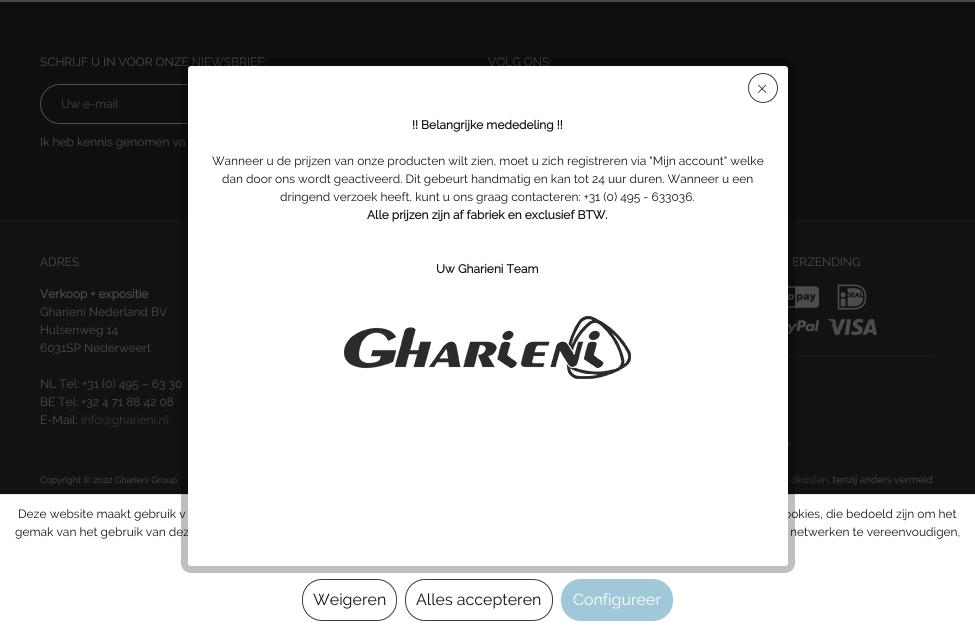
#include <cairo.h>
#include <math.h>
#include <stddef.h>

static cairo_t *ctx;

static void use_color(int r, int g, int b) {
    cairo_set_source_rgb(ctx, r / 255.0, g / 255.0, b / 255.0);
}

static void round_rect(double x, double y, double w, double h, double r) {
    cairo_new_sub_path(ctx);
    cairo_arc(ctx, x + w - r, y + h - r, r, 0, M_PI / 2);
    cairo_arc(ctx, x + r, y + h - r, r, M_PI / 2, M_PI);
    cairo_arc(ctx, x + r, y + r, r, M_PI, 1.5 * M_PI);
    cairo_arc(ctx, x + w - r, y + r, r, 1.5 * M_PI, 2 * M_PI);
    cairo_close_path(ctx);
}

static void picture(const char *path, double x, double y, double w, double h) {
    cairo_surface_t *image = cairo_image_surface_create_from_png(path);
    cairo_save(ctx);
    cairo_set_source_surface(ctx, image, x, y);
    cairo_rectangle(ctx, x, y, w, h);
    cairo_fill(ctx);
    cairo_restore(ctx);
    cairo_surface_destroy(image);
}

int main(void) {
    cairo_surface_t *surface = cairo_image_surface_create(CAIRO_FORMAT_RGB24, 975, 631);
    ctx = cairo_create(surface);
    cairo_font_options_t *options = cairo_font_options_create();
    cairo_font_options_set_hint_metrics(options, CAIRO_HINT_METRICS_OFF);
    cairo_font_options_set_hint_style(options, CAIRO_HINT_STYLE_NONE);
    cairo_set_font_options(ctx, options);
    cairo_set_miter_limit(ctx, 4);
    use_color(73, 73, 73);
    cairo_paint(ctx);
    use_color(15, 15, 15);
    cairo_rectangle(ctx, 0, 2, 975, 218);
    cairo_fill(ctx);
    cairo_select_font_face(ctx, "Raleway", CAIRO_FONT_SLANT_NORMAL, CAIRO_FONT_WEIGHT_NORMAL);
    cairo_set_font_size(ctx, 12);
    use_color(77, 77, 77);
    cairo_move_to(ctx, 40, 66);
    cairo_show_text(ctx, "SCHRIJF U IN VOOR ONZE NIEWSBRIEF:");
    cairo_new_path(ctx);
    cairo_move_to(ctx, 60, 84.5);
    cairo_line_to(ctx, 247.5, 84.5);
    cairo_line_to(ctx, 247.5, 123.5);
    cairo_line_to(ctx, 60, 123.5);
    cairo_curve_to(ctx, 49, 123.5, 40.5, 115, 40.5, 104);
    cairo_curve_to(ctx, 40.5, 93, 49, 84.5, 60, 84.5);
    cairo_close_path(ctx);
    cairo_set_line_width(ctx, 1);
    cairo_stroke(ctx);
    use_color(69, 69, 69);
    cairo_move_to(ctx, 61, 108);
    cairo_show_text(ctx, "Uw e-mail");
    use_color(77, 77, 77);
    cairo_move_to(ctx, 40, 146);
    cairo_show_text(ctx, "Ik heb kennis genomen va");
    cairo_move_to(ctx, 488, 66);
    cairo_show_text(ctx, "VOLG ONS:");
    use_color(18, 18, 17);
    cairo_rectangle(ctx, 0, 221, 975, 273);
    cairo_fill(ctx);
    use_color(26, 26, 25);
    cairo_rectangle(ctx, 0, 220, 975, 1);
    cairo_fill(ctx);
    use_color(77, 77, 77);
    cairo_move_to(ctx, 40, 266);
    cairo_show_text(ctx, "ADRES");
    cairo_select_font_face(ctx, "Raleway", CAIRO_FONT_SLANT_NORMAL, CAIRO_FONT_WEIGHT_BOLD);
    cairo_move_to(ctx, 40, 298);
    cairo_show_text(ctx, "Verkoop + expositie");
    cairo_select_font_face(ctx, "Raleway", CAIRO_FONT_SLANT_NORMAL, CAIRO_FONT_WEIGHT_NORMAL);
    cairo_move_to(ctx, 40, 316);
    cairo_show_text(ctx, "Gharieni Nederland BV");
    cairo_move_to(ctx, 40, 334);
    cairo_show_text(ctx, "Hulsenweg 14");
    cairo_move_to(ctx, 40, 352);
    cairo_show_text(ctx, "6031SP Nederweert");
    cairo_move_to(ctx, 40, 388);
    cairo_show_text(ctx, "NL Tel: +31 (0) 495 – 63 30");
    cairo_move_to(ctx, 40, 406);
    cairo_show_text(ctx, "BE Tel: +32 4 71 88 42 08");
    cairo_move_to(ctx, 40, 424);
    cairo_show_text(ctx, "E-Mail:");
    use_color(48, 60, 65);
    cairo_move_to(ctx, 81, 424);
    cairo_show_text(ctx, "info@gharieni.nl");
    use_color(77, 77, 77);
    cairo_move_to(ctx, 792, 266);
    cairo_show_text(ctx, "ERZENDING");
    picture("img1.png", 788, 286, 31, 22);
    picture("img2.png", 837, 284, 30, 26);
    picture("img3.png", 788, 320, 31, 14);
    picture("img4.png", 827, 318, 50, 18);
    use_color(26, 26, 25);
    cairo_rectangle(ctx, 788, 355, 147, 1);
    cairo_fill(ctx);
    picture("img5.png", 788, 440, 3, 6);
    cairo_set_font_size(ctx, 9);
    use_color(77, 77, 77);
    cairo_move_to(ctx, 40, 483);
    cairo_show_text(ctx, "Copyright © 2022 Gharieni Group");
    cairo_set_font_size(ctx, 10);
    use_color(48, 60, 65);
    cairo_move_to(ctx, 791, 483);
    cairo_show_text(ctx, "dkosten");
    use_color(77, 77, 77);
    cairo_move_to(ctx, 828, 483);
    cairo_show_text(ctx, ", tenzij anders vermeld.");
    use_color(255, 255, 255);
    cairo_rectangle(ctx, 0, 495, 975, 136);
    cairo_fill(ctx);
    use_color(230, 230, 230);
    cairo_rectangle(ctx, 0, 494, 975, 1);
    cairo_fill(ctx);
    cairo_set_font_size(ctx, 12);
    use_color(17, 17, 17);
    cairo_move_to(ctx, 18, 518);
    cairo_show_text(ctx, "Deze website maakt gebruik v");
    cairo_move_to(ctx, 784, 518);
    cairo_show_text(ctx, "ookies, die bedoeld zijn om het");
    cairo_move_to(ctx, 15, 536);
    cairo_show_text(ctx, "gemak van het gebruik van dez");
    cairo_move_to(ctx, 790, 536);
    cairo_show_text(ctx, "netwerken te vereenvoudigen,");
    round_rect(184.5, 62.5, 607, 507, 6.5);
    cairo_set_source_rgba(ctx, 0, 0, 0, 0.25);
    cairo_set_line_width(ctx, 7);
    cairo_stroke(ctx);
    use_color(255, 255, 255);
    round_rect(188, 66, 600, 500, 3);
    cairo_fill(ctx);
    cairo_arc(ctx, 763, 88, 14.5, 0, 2 * M_PI);
    use_color(60, 60, 58);
    cairo_set_line_width(ctx, 1);
    cairo_stroke(ctx);
    picture("img6.png", 758, 84, 9, 9);
    cairo_select_font_face(ctx, "Raleway", CAIRO_FONT_SLANT_NORMAL, CAIRO_FONT_WEIGHT_BOLD);
    use_color(17, 17, 17);
    cairo_move_to(ctx, 412, 129);
    cairo_show_text(ctx, "!! Belangrijke mededeling !!");
    cairo_select_font_face(ctx, "Raleway", CAIRO_FONT_SLANT_NORMAL, CAIRO_FONT_WEIGHT_NORMAL);
    cairo_move_to(ctx, 212, 165);
    cairo_show_text(ctx, "Wanneer u de prijzen van onze producten wilt zien, moet u zich registreren via \"Mijn account\" welke");
    cairo_move_to(ctx, 222, 183);
    cairo_show_text(ctx, "dan door ons wordt geactiveerd. Dit gebeurt handmatig en kan tot 24 uur duren. Wanneer u een");
    cairo_move_to(ctx, 280, 201);
    cairo_show_text(ctx, "dringend verzoek heeft, kunt u ons graag contacteren: +31 (0) 495 - 633036.");
    cairo_select_font_face(ctx, "Raleway", CAIRO_FONT_SLANT_NORMAL, CAIRO_FONT_WEIGHT_BOLD);
    cairo_move_to(ctx, 367, 219);
    cairo_show_text(ctx, "Alle prijzen zijn af fabriek en exclusief BTW.");
    cairo_move_to(ctx, 436, 273);
    cairo_show_text(ctx, "Uw Gharieni Team");
    picture("img7.png", 344, 316, 287, 63);
    round_rect(302.5, 579.5, 94, 41, 19.5);
    use_color(60, 60, 58);
    cairo_stroke(ctx);
    cairo_select_font_face(ctx, "Raleway", CAIRO_FONT_SLANT_NORMAL, CAIRO_FONT_WEIGHT_NORMAL);
    cairo_set_font_size(ctx, 16);
    use_color(17, 17, 17);
    cairo_move_to(ctx, 313, 605);
    cairo_show_text(ctx, "Weigeren");
    round_rect(405.5, 579.5, 147, 41, 19.5);
    use_color(60, 60, 58);
    cairo_stroke(ctx);
    use_color(17, 17, 17);
    cairo_move_to(ctx, 416, 605);
    cairo_show_text(ctx, "Alles accepteren");
    use_color(160, 200, 217);
    round_rect(561, 579, 112, 42, 20);
    cairo_fill(ctx);
    use_color(255, 255, 255);
    cairo_move_to(ctx, 573, 605);
    cairo_show_text(ctx, "Configureer");
    cairo_surface_write_to_png(surface, "result.png");
    cairo_font_options_destroy(options);
    cairo_destroy(ctx);
    cairo_surface_destroy(surface);
    return 0;
}
